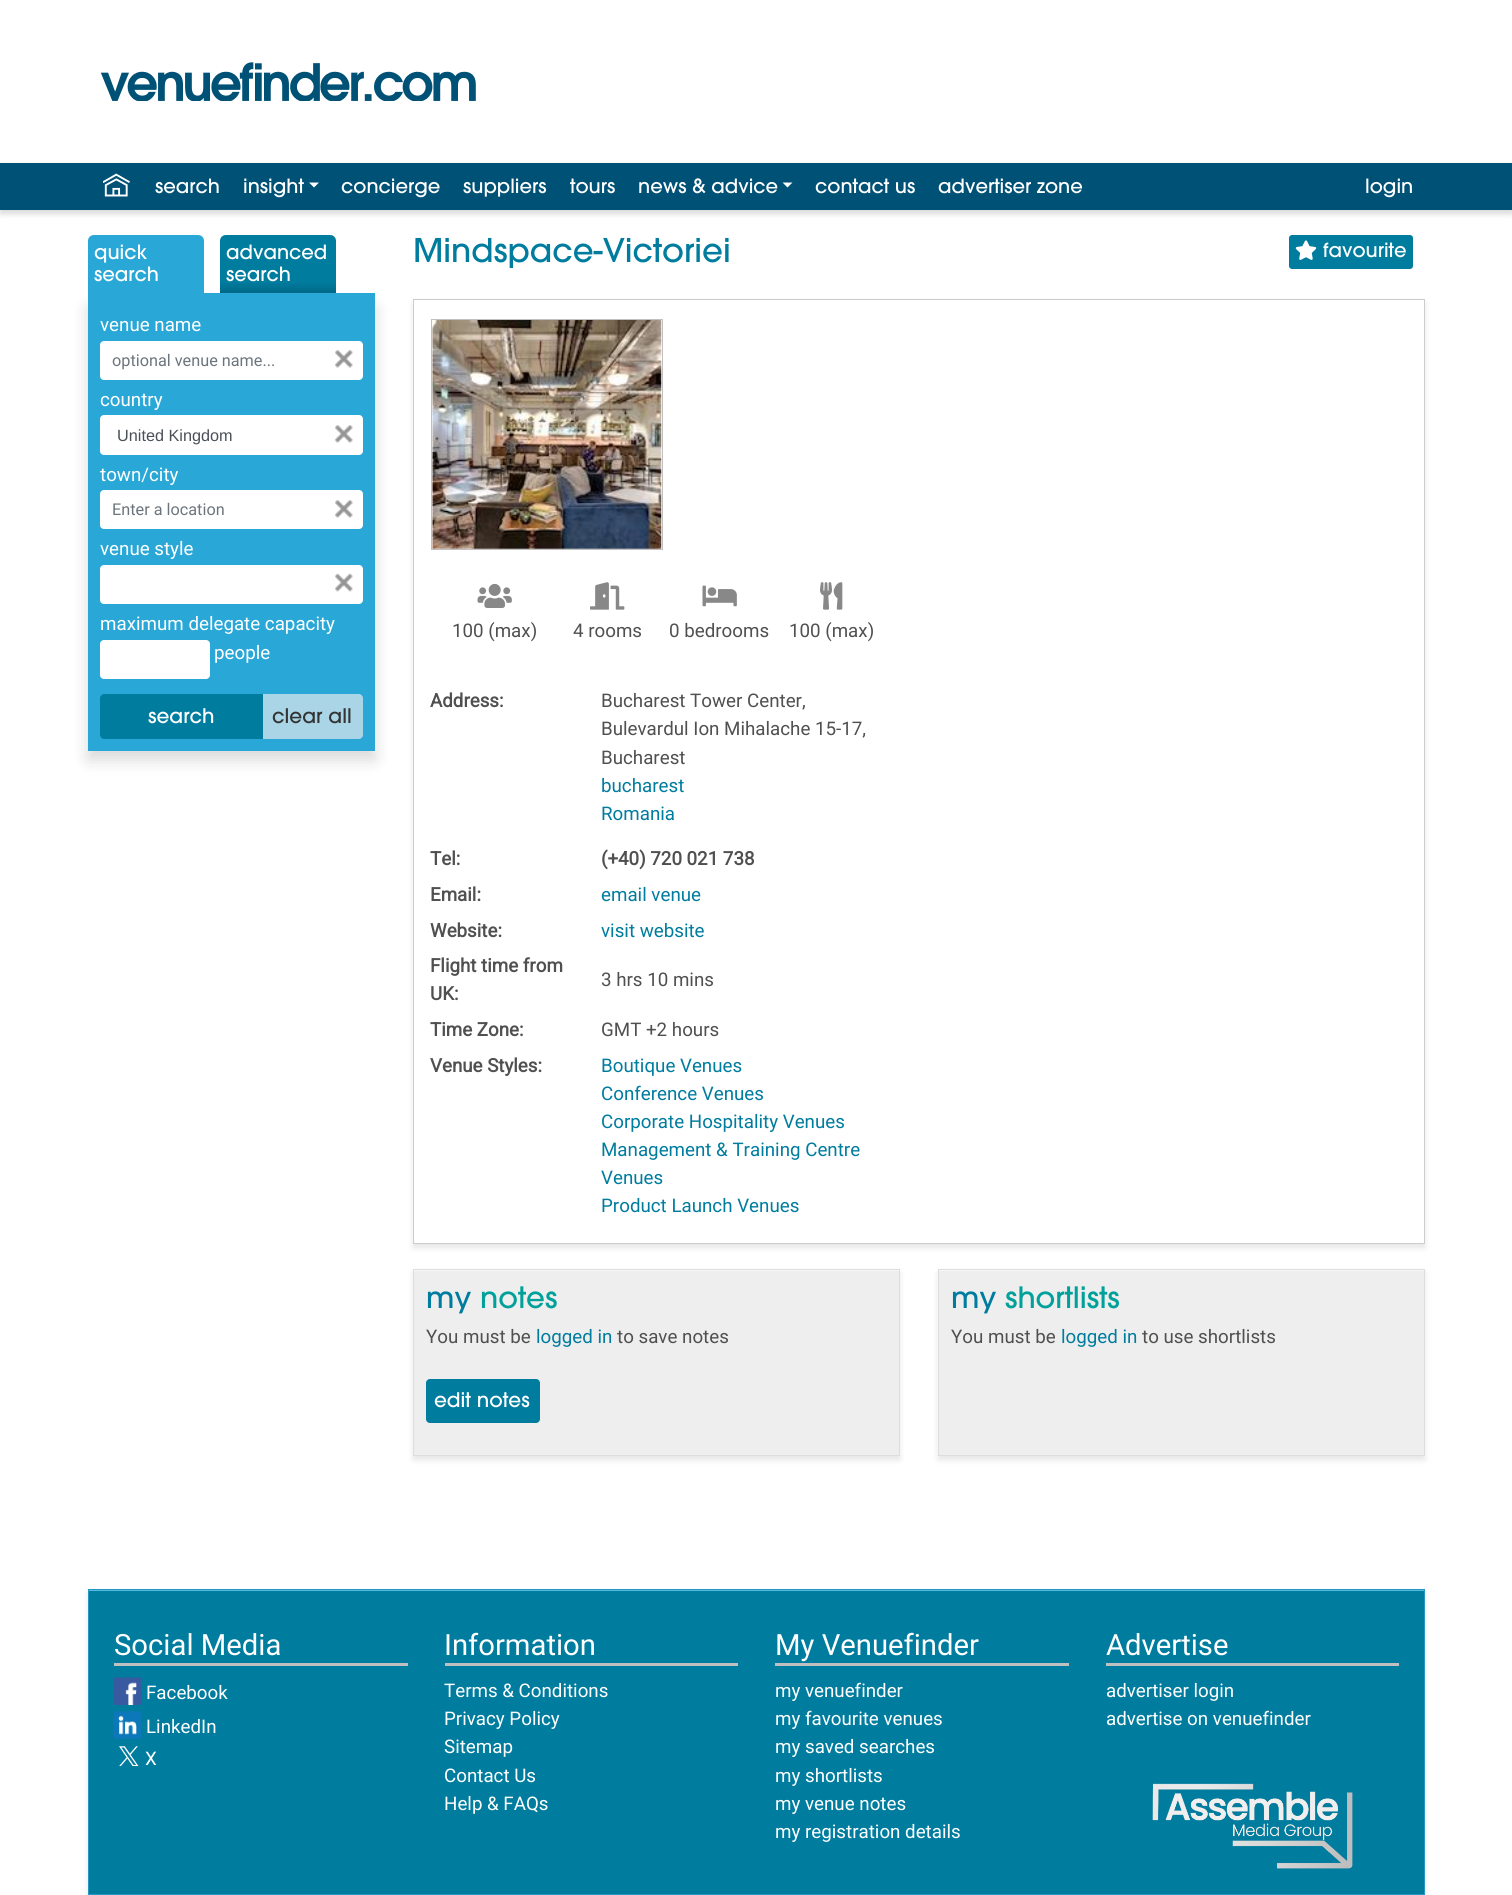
#include <cairo.h>
#include <math.h>
#include <stddef.h>

static cairo_t *ctx;

static void use_color(int r, int g, int b) {
    cairo_set_source_rgb(ctx, r / 255.0, g / 255.0, b / 255.0);
}

static void round_rect(double x, double y, double w, double h, double r) {
    cairo_new_sub_path(ctx);
    cairo_arc(ctx, x + w - r, y + h - r, r, 0, M_PI / 2);
    cairo_arc(ctx, x + r, y + h - r, r, M_PI / 2, M_PI);
    cairo_arc(ctx, x + r, y + r, r, M_PI, 1.5 * M_PI);
    cairo_arc(ctx, x + w - r, y + r, r, 1.5 * M_PI, 2 * M_PI);
    cairo_close_path(ctx);
}

static void shadow(double x, double y, double w, double h, double r, double blur, double alpha) {
    cairo_push_group_with_content(ctx, CAIRO_CONTENT_ALPHA);
    cairo_set_operator(ctx, CAIRO_OPERATOR_SOURCE);
    for (int i = 15; i >= -15 && fmin(w, h) + blur * i / 3 > 0; i -= 2) {
        double e = blur * i / 6;
        cairo_set_source_rgba(ctx, 0, 0, 0, alpha * erfc((i - 1) / 8.5) / 2);
        round_rect(x - e, y - e, w + 2 * e, h + 2 * e, fmax(0, fmin(r + e + blur * .6, fmin(w, h) / 2 + e)));
        cairo_fill(ctx);
    }
    cairo_pattern_t *soft = cairo_pop_group(ctx);
    cairo_mask(ctx, soft);
    cairo_pattern_destroy(soft);
}

static void picture(const char *path, double x, double y, double w, double h) {
    cairo_surface_t *image = cairo_image_surface_create_from_png(path);
    cairo_save(ctx);
    cairo_set_source_surface(ctx, image, x, y);
    cairo_rectangle(ctx, x, y, w, h);
    cairo_fill(ctx);
    cairo_restore(ctx);
    cairo_surface_destroy(image);
}

int main(void) {
    cairo_surface_t *surface = cairo_image_surface_create(CAIRO_FORMAT_RGB24, 1512, 1895);
    ctx = cairo_create(surface);
    cairo_font_options_t *options = cairo_font_options_create();
    cairo_font_options_set_hint_metrics(options, CAIRO_HINT_METRICS_OFF);
    cairo_font_options_set_hint_style(options, CAIRO_HINT_STYLE_NONE);
    cairo_set_font_options(ctx, options);
    cairo_set_miter_limit(ctx, 4);
    cairo_pattern_t *gradient;
    use_color(255, 255, 255);
    cairo_paint(ctx);
    picture("img1.png", 100, 62, 376, 39);
    use_color(0, 0, 0);
    shadow(0, 166, 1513, 48, 0, 3, 0.15);
    use_color(0, 81, 118);
    cairo_rectangle(ctx, 0, 163, 1512, 47);
    cairo_fill(ctx);
    picture("img2.png", 103, 173, 27, 24);
    cairo_select_font_face(ctx, "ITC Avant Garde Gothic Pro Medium", CAIRO_FONT_SLANT_NORMAL, CAIRO_FONT_WEIGHT_NORMAL);
    cairo_set_font_size(ctx, 19.5);
    use_color(255, 255, 255);
    cairo_move_to(ctx, 155, 193);
    cairo_show_text(ctx, "search");
    cairo_move_to(ctx, 243, 193);
    cairo_show_text(ctx, "insight");
    cairo_new_path(ctx);
    cairo_move_to(ctx, 309, 182.5);
    cairo_line_to(ctx, 319, 182.5);
    cairo_line_to(ctx, 314, 187.5);
    cairo_close_path(ctx);
    cairo_fill(ctx);
    cairo_move_to(ctx, 341, 193);
    cairo_show_text(ctx, "concierge");
    cairo_move_to(ctx, 463, 193);
    cairo_show_text(ctx, "suppliers");
    cairo_move_to(ctx, 570, 193);
    cairo_show_text(ctx, "tours");
    cairo_move_to(ctx, 638, 193);
    cairo_show_text(ctx, "news & advice");
    cairo_new_path(ctx);
    cairo_move_to(ctx, 782.5, 182.5);
    cairo_line_to(ctx, 792.5, 182.5);
    cairo_line_to(ctx, 787.5, 187.5);
    cairo_close_path(ctx);
    cairo_fill(ctx);
    cairo_move_to(ctx, 815, 193);
    cairo_show_text(ctx, "contact us");
    cairo_move_to(ctx, 938, 193);
    cairo_show_text(ctx, "advertiser zone");
    cairo_move_to(ctx, 1365, 193);
    cairo_show_text(ctx, "login");
    use_color(0, 0, 0);
    shadow(88, 308, 287, 452, 0, 8, 0.15);
    use_color(41, 167, 215);
    cairo_new_path(ctx);
    cairo_move_to(ctx, 94, 235);
    cairo_line_to(ctx, 198, 235);
    cairo_curve_to(ctx, 201.5, 235, 204, 237.5, 204, 241);
    cairo_line_to(ctx, 204, 293);
    cairo_line_to(ctx, 88, 293);
    cairo_line_to(ctx, 88, 241);
    cairo_curve_to(ctx, 88, 237.5, 90.5, 235, 94, 235);
    cairo_close_path(ctx);
    cairo_fill(ctx);
    use_color(255, 255, 255);
    cairo_move_to(ctx, 94, 259);
    cairo_show_text(ctx, "quick");
    cairo_move_to(ctx, 94, 281);
    cairo_show_text(ctx, "search");
    gradient = cairo_pattern_create_linear(278, 235, 278, 293);
    cairo_pattern_add_color_stop_rgba(gradient, 0, 0, 0.486, 0.624, 1);
    cairo_pattern_add_color_stop_rgba(gradient, 0.81, 0, 0.486, 0.624, 1);
    cairo_pattern_add_color_stop_rgba(gradient, 1, 0, 0.408, 0.525, 1);
    cairo_set_source(ctx, gradient);
    cairo_pattern_destroy(gradient);
    cairo_new_path(ctx);
    cairo_move_to(ctx, 226, 235);
    cairo_line_to(ctx, 330, 235);
    cairo_curve_to(ctx, 333.5, 235, 336, 237.5, 336, 241);
    cairo_line_to(ctx, 336, 293);
    cairo_line_to(ctx, 220, 293);
    cairo_line_to(ctx, 220, 241);
    cairo_curve_to(ctx, 220, 237.5, 222.5, 235, 226, 235);
    cairo_close_path(ctx);
    cairo_fill(ctx);
    use_color(255, 255, 255);
    cairo_move_to(ctx, 226, 259);
    cairo_show_text(ctx, "advanced");
    cairo_move_to(ctx, 226, 281);
    cairo_show_text(ctx, "search");
    use_color(41, 167, 215);
    cairo_rectangle(ctx, 88, 293, 287, 458);
    cairo_fill(ctx);
    cairo_select_font_face(ctx, "Roboto", CAIRO_FONT_SLANT_NORMAL, CAIRO_FONT_WEIGHT_NORMAL);
    cairo_set_font_size(ctx, 18.75);
    use_color(255, 255, 255);
    cairo_move_to(ctx, 100, 331);
    cairo_show_text(ctx, "venue name");
    round_rect(100, 341, 263, 39, 4);
    cairo_fill(ctx);
    cairo_set_font_size(ctx, 16.25);
    use_color(108, 117, 125);
    cairo_move_to(ctx, 112, 366);
    cairo_show_text(ctx, "optional venue name...");
    picture("img3.png", 335, 350, 18, 18);
    cairo_set_font_size(ctx, 18.75);
    use_color(255, 255, 255);
    cairo_move_to(ctx, 100, 406);
    cairo_show_text(ctx, "country");
    round_rect(100, 415, 263, 40, 4);
    cairo_fill(ctx);
    cairo_select_font_face(ctx, "Liberation Sans", CAIRO_FONT_SLANT_NORMAL, CAIRO_FONT_WEIGHT_NORMAL);
    cairo_set_font_size(ctx, 16.25);
    use_color(73, 80, 87);
    cairo_move_to(ctx, 117, 441);
    cairo_show_text(ctx, "United Kingdom");
    picture("img3.png", 335, 425, 18, 18);
    cairo_select_font_face(ctx, "Roboto", CAIRO_FONT_SLANT_NORMAL, CAIRO_FONT_WEIGHT_NORMAL);
    cairo_set_font_size(ctx, 18.75);
    use_color(255, 255, 255);
    cairo_move_to(ctx, 100, 481);
    cairo_show_text(ctx, "town/city");
    round_rect(100, 490, 263, 39, 4);
    cairo_fill(ctx);
    cairo_set_font_size(ctx, 16.25);
    use_color(108, 117, 125);
    cairo_move_to(ctx, 112, 515);
    cairo_show_text(ctx, "Enter a location");
    picture("img3.png", 335, 500, 18, 18);
    cairo_set_font_size(ctx, 18.75);
    use_color(255, 255, 255);
    cairo_move_to(ctx, 100, 555);
    cairo_show_text(ctx, "venue style");
    round_rect(100, 565, 263, 39, 4);
    cairo_fill(ctx);
    picture("img4.png", 335, 573, 18, 19);
    cairo_move_to(ctx, 100, 630);
    cairo_show_text(ctx, "maximum delegate capacity");
    round_rect(100, 640, 110, 39, 4);
    cairo_fill(ctx);
    cairo_move_to(ctx, 214, 659);
    cairo_show_text(ctx, "people");
    use_color(0, 124, 159);
    cairo_new_path(ctx);
    cairo_move_to(ctx, 104, 694);
    cairo_line_to(ctx, 264, 694);
    cairo_line_to(ctx, 264, 739);
    cairo_line_to(ctx, 104, 739);
    cairo_curve_to(ctx, 102, 739, 100, 737, 100, 735);
    cairo_line_to(ctx, 100, 698);
    cairo_curve_to(ctx, 100, 696, 102, 694, 104, 694);
    cairo_close_path(ctx);
    cairo_fill(ctx);
    cairo_select_font_face(ctx, "ITC Avant Garde Gothic Pro Medium", CAIRO_FONT_SLANT_NORMAL, CAIRO_FONT_WEIGHT_NORMAL);
    cairo_set_font_size(ctx, 20);
    use_color(255, 255, 255);
    cairo_move_to(ctx, 148, 723);
    cairo_show_text(ctx, "search");
    use_color(169, 213, 231);
    cairo_new_path(ctx);
    cairo_move_to(ctx, 263, 694);
    cairo_line_to(ctx, 359, 694);
    cairo_curve_to(ctx, 361, 694, 363, 696, 363, 698);
    cairo_line_to(ctx, 363, 735);
    cairo_curve_to(ctx, 363, 737, 361, 739, 359, 739);
    cairo_line_to(ctx, 263, 739);
    cairo_close_path(ctx);
    cairo_fill(ctx);
    use_color(51, 51, 51);
    cairo_move_to(ctx, 272, 723);
    cairo_show_text(ctx, "clear all");
    cairo_set_font_size(ctx, 32.5);
    use_color(0, 124, 159);
    cairo_move_to(ctx, 413, 262);
    cairo_show_text(ctx, "Mindspace-Victoriei");
    round_rect(1289, 235, 124, 34, 3);
    cairo_fill(ctx);
    picture("img5.png", 1295, 240, 22, 20);
    cairo_set_font_size(ctx, 19.5);
    use_color(255, 255, 255);
    cairo_move_to(ctx, 1323, 257);
    cairo_show_text(ctx, "favourite");
    use_color(0, 0, 0);
    shadow(413, 303, 1012, 945, 0, 3, 0.1);
    use_color(255, 255, 255);
    cairo_rectangle(ctx, 413.5, 299.5, 1011, 944);
    cairo_fill_preserve(ctx);
    use_color(204, 204, 204);
    cairo_set_line_width(ctx, 1);
    cairo_stroke(ctx);
    cairo_rectangle(ctx, 431.5, 319.5, 231, 230);
    use_color(192, 192, 192);
    cairo_stroke(ctx);
    picture("img6.png", 432, 320, 230, 229);
    picture("img7.png", 477, 583, 35, 25);
    picture("img8.png", 590, 582, 35, 28);
    picture("img9.png", 702, 585, 35, 22);
    picture("img10.png", 820, 582, 23, 28);
    cairo_select_font_face(ctx, "Roboto", CAIRO_FONT_SLANT_NORMAL, CAIRO_FONT_WEIGHT_NORMAL);
    cairo_set_font_size(ctx, 18.75);
    use_color(80, 80, 80);
    cairo_move_to(ctx, 452, 637);
    cairo_show_text(ctx, "100 (max)");
    cairo_move_to(ctx, 573, 637);
    cairo_show_text(ctx, "4 rooms");
    cairo_move_to(ctx, 669, 637);
    cairo_show_text(ctx, "0 bedrooms");
    cairo_move_to(ctx, 789, 637);
    cairo_show_text(ctx, "100 (max)");
    cairo_select_font_face(ctx, "Roboto", CAIRO_FONT_SLANT_NORMAL, CAIRO_FONT_WEIGHT_BOLD);
    cairo_move_to(ctx, 430, 707);
    cairo_show_text(ctx, "Address:");
    cairo_select_font_face(ctx, "Roboto", CAIRO_FONT_SLANT_NORMAL, CAIRO_FONT_WEIGHT_NORMAL);
    cairo_move_to(ctx, 601, 707);
    cairo_show_text(ctx, "Bucharest Tower Center,");
    cairo_move_to(ctx, 601, 735);
    cairo_show_text(ctx, "Bulevardul Ion Mihalache 15-17,");
    cairo_move_to(ctx, 601, 764);
    cairo_show_text(ctx, "Bucharest");
    use_color(0, 124, 159);
    cairo_move_to(ctx, 601, 792);
    cairo_show_text(ctx, "bucharest");
    cairo_move_to(ctx, 601, 820);
    cairo_show_text(ctx, "Romania");
    cairo_select_font_face(ctx, "Roboto", CAIRO_FONT_SLANT_NORMAL, CAIRO_FONT_WEIGHT_BOLD);
    use_color(80, 80, 80);
    cairo_move_to(ctx, 430, 865);
    cairo_show_text(ctx, "Tel:");
    cairo_move_to(ctx, 601, 865);
    cairo_show_text(ctx, "(+40) 720 021 738");
    cairo_move_to(ctx, 430, 901);
    cairo_show_text(ctx, "Email:");
    cairo_select_font_face(ctx, "Roboto", CAIRO_FONT_SLANT_NORMAL, CAIRO_FONT_WEIGHT_NORMAL);
    use_color(0, 124, 159);
    cairo_move_to(ctx, 601, 901);
    cairo_show_text(ctx, "email venue");
    cairo_select_font_face(ctx, "Roboto", CAIRO_FONT_SLANT_NORMAL, CAIRO_FONT_WEIGHT_BOLD);
    use_color(80, 80, 80);
    cairo_move_to(ctx, 430, 937);
    cairo_show_text(ctx, "Website:");
    cairo_select_font_face(ctx, "Roboto", CAIRO_FONT_SLANT_NORMAL, CAIRO_FONT_WEIGHT_NORMAL);
    use_color(0, 124, 159);
    cairo_move_to(ctx, 601, 937);
    cairo_show_text(ctx, "visit website");
    cairo_select_font_face(ctx, "Roboto", CAIRO_FONT_SLANT_NORMAL, CAIRO_FONT_WEIGHT_BOLD);
    use_color(80, 80, 80);
    cairo_move_to(ctx, 430, 972);
    cairo_show_text(ctx, "Flight time from");
    cairo_move_to(ctx, 430, 1000);
    cairo_show_text(ctx, "UK:");
    cairo_select_font_face(ctx, "Roboto", CAIRO_FONT_SLANT_NORMAL, CAIRO_FONT_WEIGHT_NORMAL);
    cairo_move_to(ctx, 601, 986);
    cairo_show_text(ctx, "3 hrs 10 mins");
    cairo_select_font_face(ctx, "Roboto", CAIRO_FONT_SLANT_NORMAL, CAIRO_FONT_WEIGHT_BOLD);
    cairo_move_to(ctx, 430, 1036);
    cairo_show_text(ctx, "Time Zone:");
    cairo_select_font_face(ctx, "Roboto", CAIRO_FONT_SLANT_NORMAL, CAIRO_FONT_WEIGHT_NORMAL);
    cairo_move_to(ctx, 601, 1036);
    cairo_show_text(ctx, "GMT +2 hours");
    cairo_select_font_face(ctx, "Roboto", CAIRO_FONT_SLANT_NORMAL, CAIRO_FONT_WEIGHT_BOLD);
    cairo_move_to(ctx, 430, 1072);
    cairo_show_text(ctx, "Venue Styles:");
    cairo_select_font_face(ctx, "Roboto", CAIRO_FONT_SLANT_NORMAL, CAIRO_FONT_WEIGHT_NORMAL);
    use_color(0, 124, 159);
    cairo_move_to(ctx, 601, 1072);
    cairo_show_text(ctx, "Boutique Venues");
    cairo_move_to(ctx, 601, 1100);
    cairo_show_text(ctx, "Conference Venues");
    cairo_move_to(ctx, 601, 1128);
    cairo_show_text(ctx, "Corporate Hospitality Venues");
    cairo_move_to(ctx, 601, 1156);
    cairo_show_text(ctx, "Management & Training Centre");
    cairo_move_to(ctx, 601, 1184);
    cairo_show_text(ctx, "Venues");
    cairo_move_to(ctx, 601, 1212);
    cairo_show_text(ctx, "Product Launch Venues");
    use_color(0, 0, 0);
    shadow(413, 1273, 487, 187, 0, 3, 0.1);
    use_color(238, 238, 238);
    cairo_rectangle(ctx, 414, 1271, 485, 184);
    cairo_fill(ctx);
    use_color(247, 247, 247);
    cairo_rectangle(ctx, 414, 1270, 485, 1);
    cairo_fill(ctx);
    cairo_rectangle(ctx, 413.5, 1269.5, 486, 186);
    use_color(221, 221, 221);
    cairo_stroke(ctx);
    cairo_select_font_face(ctx, "ITC Avant Garde Gothic Pro Medium", CAIRO_FONT_SLANT_NORMAL, CAIRO_FONT_WEIGHT_NORMAL);
    cairo_set_font_size(ctx, 29.25);
    use_color(0, 124, 159);
    cairo_move_to(ctx, 426, 1308);
    cairo_show_text(ctx, "my");
    use_color(0, 161, 154);
    cairo_move_to(ctx, 480, 1308);
    cairo_show_text(ctx, "notes");
    cairo_select_font_face(ctx, "Roboto", CAIRO_FONT_SLANT_NORMAL, CAIRO_FONT_WEIGHT_NORMAL);
    cairo_set_font_size(ctx, 18.75);
    use_color(80, 80, 80);
    cairo_move_to(ctx, 426, 1343);
    cairo_show_text(ctx, "You must be");
    use_color(0, 124, 159);
    cairo_move_to(ctx, 536, 1343);
    cairo_show_text(ctx, "logged in");
    use_color(80, 80, 80);
    cairo_move_to(ctx, 617, 1343);
    cairo_show_text(ctx, "to save notes");
    use_color(0, 124, 159);
    round_rect(426, 1379, 114, 44, 4);
    cairo_fill(ctx);
    cairo_select_font_face(ctx, "ITC Avant Garde Gothic Pro Medium", CAIRO_FONT_SLANT_NORMAL, CAIRO_FONT_WEIGHT_NORMAL);
    cairo_set_font_size(ctx, 20);
    use_color(255, 255, 255);
    cairo_move_to(ctx, 434, 1407);
    cairo_show_text(ctx, "edit notes");
    use_color(0, 0, 0);
    shadow(938, 1273, 487, 187, 0, 3, 0.1);
    use_color(238, 238, 238);
    cairo_rectangle(ctx, 939, 1271, 485, 184);
    cairo_fill(ctx);
    use_color(247, 247, 247);
    cairo_rectangle(ctx, 939, 1270, 485, 1);
    cairo_fill(ctx);
    cairo_rectangle(ctx, 938.5, 1269.5, 486, 186);
    use_color(221, 221, 221);
    cairo_stroke(ctx);
    cairo_set_font_size(ctx, 29.25);
    use_color(0, 124, 159);
    cairo_move_to(ctx, 951, 1308);
    cairo_show_text(ctx, "my");
    use_color(0, 161, 154);
    cairo_move_to(ctx, 1005, 1308);
    cairo_show_text(ctx, "shortlists");
    cairo_select_font_face(ctx, "Roboto", CAIRO_FONT_SLANT_NORMAL, CAIRO_FONT_WEIGHT_NORMAL);
    cairo_set_font_size(ctx, 18.75);
    use_color(80, 80, 80);
    cairo_move_to(ctx, 951, 1343);
    cairo_show_text(ctx, "You must be");
    use_color(0, 124, 159);
    cairo_move_to(ctx, 1061, 1343);
    cairo_show_text(ctx, "logged in");
    use_color(80, 80, 80);
    cairo_move_to(ctx, 1142, 1343);
    cairo_show_text(ctx, "to use shortlists");
    use_color(0, 0, 0);
    shadow(88, 1593, 1337, 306, 0, 3, 0.1);
    use_color(0, 124, 159);
    cairo_rectangle(ctx, 89, 1591, 1335, 303);
    cairo_fill(ctx);
    use_color(84, 185, 223);
    cairo_rectangle(ctx, 89, 1590, 1335, 1);
    cairo_fill(ctx);
    cairo_rectangle(ctx, 88.5, 1589.5, 1336, 305);
    use_color(36, 151, 194);
    cairo_stroke(ctx);
    use_color(192, 192, 192);
    cairo_rectangle(ctx, 114, 1663, 294, 3);
    cairo_fill(ctx);
    cairo_set_font_size(ctx, 29.25);
    use_color(255, 255, 255);
    cairo_move_to(ctx, 114, 1655);
    cairo_show_text(ctx, "Social Media");
    picture("img11.png", 113, 1677, 29, 28);
    cairo_set_font_size(ctx, 18.75);
    cairo_move_to(ctx, 146, 1699);
    cairo_show_text(ctx, "Facebook");
    picture("img12.png", 113, 1711, 29, 28);
    cairo_move_to(ctx, 146, 1733);
    cairo_show_text(ctx, "LinkedIn");
    picture("img13.png", 119, 1746, 20, 20);
    cairo_move_to(ctx, 145, 1765);
    cairo_show_text(ctx, "X");
    use_color(192, 192, 192);
    cairo_rectangle(ctx, 445, 1663, 293, 3);
    cairo_fill(ctx);
    cairo_set_font_size(ctx, 29.25);
    use_color(255, 255, 255);
    cairo_move_to(ctx, 444, 1655);
    cairo_show_text(ctx, "Information");
    cairo_set_font_size(ctx, 18.75);
    cairo_move_to(ctx, 444, 1697);
    cairo_show_text(ctx, "Terms & Conditions");
    cairo_move_to(ctx, 444, 1725);
    cairo_show_text(ctx, "Privacy Policy");
    cairo_move_to(ctx, 444, 1753);
    cairo_show_text(ctx, "Sitemap");
    cairo_move_to(ctx, 444, 1782);
    cairo_show_text(ctx, "Contact Us");
    cairo_move_to(ctx, 444, 1810);
    cairo_show_text(ctx, "Help & FAQs");
    use_color(192, 192, 192);
    cairo_rectangle(ctx, 775, 1663, 294, 3);
    cairo_fill(ctx);
    cairo_set_font_size(ctx, 29.25);
    use_color(255, 255, 255);
    cairo_move_to(ctx, 775, 1655);
    cairo_show_text(ctx, "My Venuefinder");
    cairo_set_font_size(ctx, 18.75);
    cairo_move_to(ctx, 775, 1697);
    cairo_show_text(ctx, "my venuefinder");
    cairo_move_to(ctx, 775, 1725);
    cairo_show_text(ctx, "my favourite venues");
    cairo_move_to(ctx, 775, 1753);
    cairo_show_text(ctx, "my saved searches");
    cairo_move_to(ctx, 775, 1782);
    cairo_show_text(ctx, "my shortlists");
    cairo_move_to(ctx, 775, 1810);
    cairo_show_text(ctx, "my venue notes");
    cairo_move_to(ctx, 775, 1838);
    cairo_show_text(ctx, "my registration details");
    use_color(192, 192, 192);
    cairo_rectangle(ctx, 1106, 1663, 293, 3);
    cairo_fill(ctx);
    cairo_set_font_size(ctx, 29.25);
    use_color(255, 255, 255);
    cairo_move_to(ctx, 1106, 1655);
    cairo_show_text(ctx, "Advertise");
    cairo_set_font_size(ctx, 18.75);
    cairo_move_to(ctx, 1106, 1697);
    cairo_show_text(ctx, "advertiser login");
    cairo_move_to(ctx, 1106, 1725);
    cairo_show_text(ctx, "advertise on venuefinder");
    picture("img14.png", 1152, 1783, 201, 86);
    cairo_surface_write_to_png(surface, "result.png");
    cairo_font_options_destroy(options);
    cairo_destroy(ctx);
    cairo_surface_destroy(surface);
    return 0;
}
